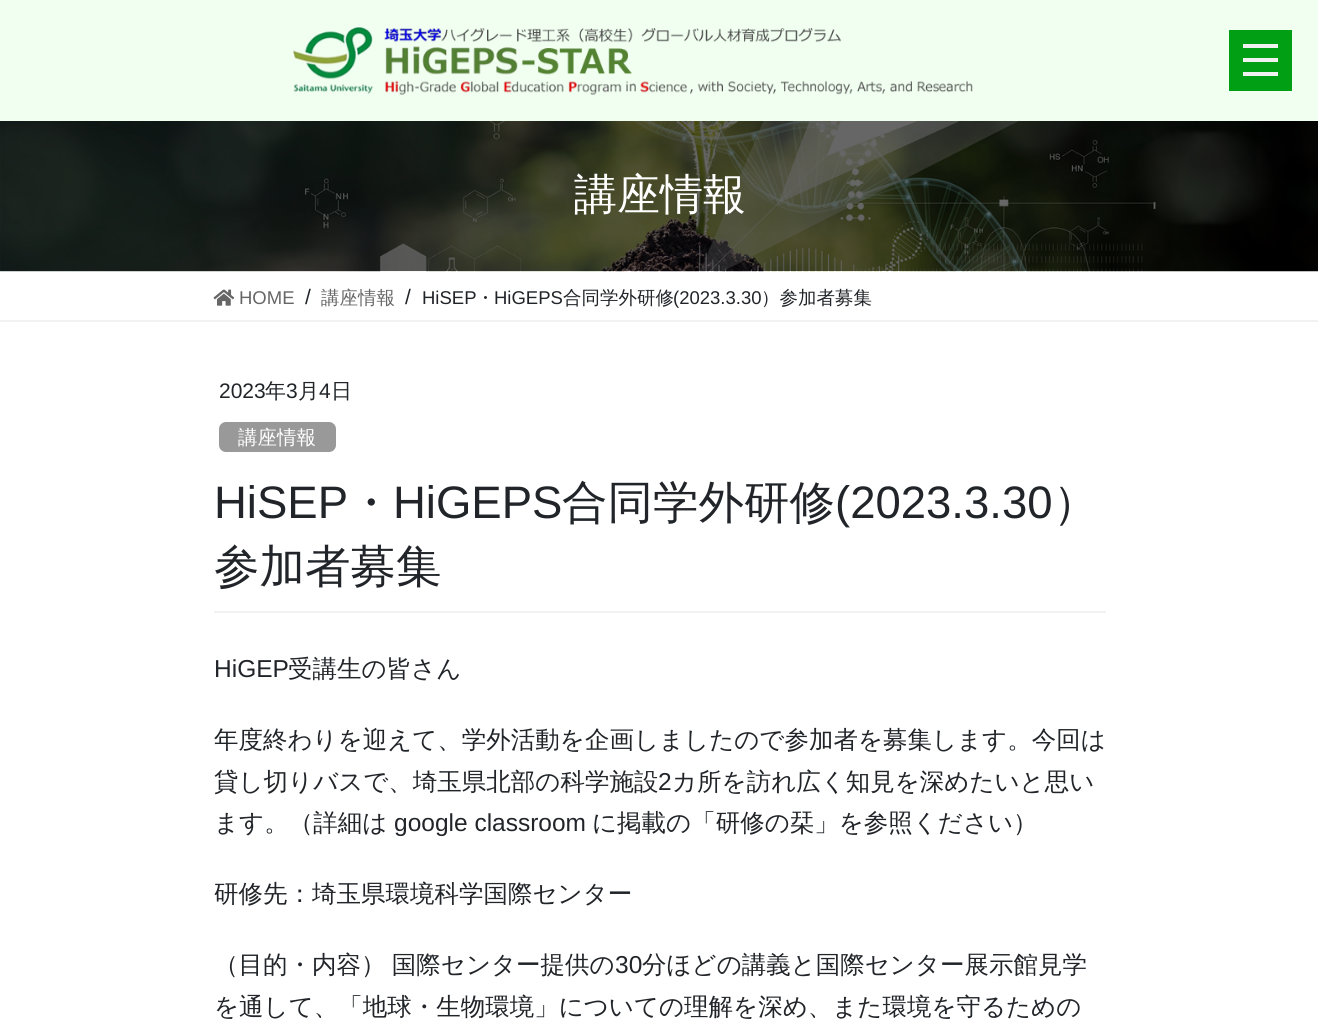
#include <cairo.h>
#include <math.h>
#include <stddef.h>

static cairo_t *ctx;

static void use_color(int r, int g, int b) {
    cairo_set_source_rgb(ctx, r / 255.0, g / 255.0, b / 255.0);
}

static void spaced_text(double x, double y, const char *s, double letter, double word) {
    cairo_move_to(ctx, x, y);
    while (*s) {
        char ch[5] = {0};
        int n = 0;
        do ch[n++] = *s++; while ((*s & 0xC0) == 0x80);
        cairo_show_text(ctx, ch);
        cairo_rel_move_to(ctx, letter + word * (*ch == ' '), 0);
    }
}

static void round_rect(double x, double y, double w, double h, double r) {
    cairo_new_sub_path(ctx);
    cairo_arc(ctx, x + w - r, y + h - r, r, 0, M_PI / 2);
    cairo_arc(ctx, x + r, y + h - r, r, M_PI / 2, M_PI);
    cairo_arc(ctx, x + r, y + r, r, M_PI, 1.5 * M_PI);
    cairo_arc(ctx, x + w - r, y + r, r, 1.5 * M_PI, 2 * M_PI);
    cairo_close_path(ctx);
}

static void picture(const char *path, double x, double y, double w, double h) {
    cairo_surface_t *image = cairo_image_surface_create_from_png(path);
    cairo_save(ctx);
    cairo_set_source_surface(ctx, image, x, y);
    cairo_rectangle(ctx, x, y, w, h);
    cairo_fill(ctx);
    cairo_restore(ctx);
    cairo_surface_destroy(image);
}

int main(void) {
    cairo_surface_t *surface = cairo_image_surface_create(CAIRO_FORMAT_RGB24, 1318, 1033);
    ctx = cairo_create(surface);
    cairo_font_options_t *options = cairo_font_options_create();
    cairo_font_options_set_hint_metrics(options, CAIRO_HINT_METRICS_OFF);
    cairo_font_options_set_hint_style(options, CAIRO_HINT_STYLE_NONE);
    cairo_set_font_options(ctx, options);
    cairo_set_miter_limit(ctx, 4);
    use_color(255, 255, 255);
    cairo_paint(ctx);
    use_color(241, 255, 240);
    cairo_rectangle(ctx, 0, 0, 1318, 121);
    cairo_fill(ctx);
    picture("img1.png", 292, 26, 681, 69);
    use_color(0, 159, 20);
    cairo_rectangle(ctx, 1229, 30, 63, 61);
    cairo_fill(ctx);
    use_color(241, 241, 241);
    cairo_rectangle(ctx, 1243, 44, 35, 4);
    cairo_fill(ctx);
    cairo_rectangle(ctx, 1243, 58, 35, 4);
    cairo_fill(ctx);
    cairo_rectangle(ctx, 1243, 72, 35, 4);
    cairo_fill(ctx);
    picture("img2.png", 0, 121, 1318, 151);
    cairo_select_font_face(ctx, "WenQuanYi Zen Hei Medium", CAIRO_FONT_SLANT_NORMAL, CAIRO_FONT_WEIGHT_NORMAL);
    cairo_set_font_size(ctx, 43);
    use_color(255, 255, 255);
    cairo_move_to(ctx, 574, 209);
    cairo_show_text(ctx, "講座情報");
    use_color(242, 242, 242);
    cairo_rectangle(ctx, 0, 320, 1318, 2);
    cairo_fill(ctx);
    picture("img3.png", 213, 289, 22, 17);
    cairo_select_font_face(ctx, "Liberation Sans", CAIRO_FONT_SLANT_NORMAL, CAIRO_FONT_WEIGHT_NORMAL);
    cairo_set_font_size(ctx, 18.5);
    use_color(102, 102, 102);
    cairo_move_to(ctx, 239, 304);
    cairo_show_text(ctx, "HOME");
    cairo_set_font_size(ctx, 21);
    use_color(33, 37, 41);
    cairo_move_to(ctx, 305, 304);
    cairo_show_text(ctx, "/");
    cairo_select_font_face(ctx, "WenQuanYi Zen Hei Medium", CAIRO_FONT_SLANT_NORMAL, CAIRO_FONT_WEIGHT_NORMAL);
    cairo_set_font_size(ctx, 18.5);
    use_color(102, 102, 102);
    cairo_move_to(ctx, 321, 304);
    cairo_show_text(ctx, "講座情報");
    cairo_select_font_face(ctx, "Liberation Sans", CAIRO_FONT_SLANT_NORMAL, CAIRO_FONT_WEIGHT_NORMAL);
    cairo_set_font_size(ctx, 21);
    use_color(33, 37, 41);
    cairo_move_to(ctx, 405, 304);
    cairo_show_text(ctx, "/");
    cairo_set_font_size(ctx, 18.5);
    cairo_move_to(ctx, 422, 304);
    cairo_show_text(ctx, "HiSEP");
    cairo_select_font_face(ctx, "WenQuanYi Zen Hei Medium", CAIRO_FONT_SLANT_NORMAL, CAIRO_FONT_WEIGHT_NORMAL);
    cairo_move_to(ctx, 476, 304);
    cairo_show_text(ctx, "・");
    cairo_select_font_face(ctx, "Liberation Sans", CAIRO_FONT_SLANT_NORMAL, CAIRO_FONT_WEIGHT_NORMAL);
    cairo_move_to(ctx, 494, 304);
    cairo_show_text(ctx, "HiGEPS");
    cairo_select_font_face(ctx, "WenQuanYi Zen Hei Medium", CAIRO_FONT_SLANT_NORMAL, CAIRO_FONT_WEIGHT_NORMAL);
    cairo_move_to(ctx, 563, 304);
    cairo_show_text(ctx, "合同学外研修");
    cairo_select_font_face(ctx, "Liberation Sans", CAIRO_FONT_SLANT_NORMAL, CAIRO_FONT_WEIGHT_NORMAL);
    cairo_move_to(ctx, 673, 304);
    cairo_show_text(ctx, "(2023.3.30");
    cairo_select_font_face(ctx, "WenQuanYi Zen Hei Medium", CAIRO_FONT_SLANT_NORMAL, CAIRO_FONT_WEIGHT_NORMAL);
    cairo_move_to(ctx, 761, 304);
    cairo_show_text(ctx, "）参加者募集");
    use_color(242, 242, 242);
    cairo_rectangle(ctx, 214, 611, 892, 2);
    cairo_fill(ctx);
    cairo_select_font_face(ctx, "Liberation Sans", CAIRO_FONT_SLANT_NORMAL, CAIRO_FONT_WEIGHT_NORMAL);
    cairo_set_font_size(ctx, 21);
    use_color(33, 37, 41);
    cairo_move_to(ctx, 219, 398);
    cairo_show_text(ctx, "2023");
    cairo_select_font_face(ctx, "WenQuanYi Zen Hei Medium", CAIRO_FONT_SLANT_NORMAL, CAIRO_FONT_WEIGHT_NORMAL);
    cairo_move_to(ctx, 265, 398);
    cairo_show_text(ctx, "年");
    cairo_select_font_face(ctx, "Liberation Sans", CAIRO_FONT_SLANT_NORMAL, CAIRO_FONT_WEIGHT_NORMAL);
    cairo_move_to(ctx, 286, 398);
    cairo_show_text(ctx, "3");
    cairo_select_font_face(ctx, "WenQuanYi Zen Hei Medium", CAIRO_FONT_SLANT_NORMAL, CAIRO_FONT_WEIGHT_NORMAL);
    cairo_move_to(ctx, 298, 398);
    cairo_show_text(ctx, "月");
    cairo_select_font_face(ctx, "Liberation Sans", CAIRO_FONT_SLANT_NORMAL, CAIRO_FONT_WEIGHT_NORMAL);
    cairo_move_to(ctx, 319, 398);
    cairo_show_text(ctx, "4");
    cairo_select_font_face(ctx, "WenQuanYi Zen Hei Medium", CAIRO_FONT_SLANT_NORMAL, CAIRO_FONT_WEIGHT_NORMAL);
    cairo_move_to(ctx, 331, 398);
    cairo_show_text(ctx, "日");
    use_color(153, 153, 153);
    round_rect(219, 422, 117, 30, 7);
    cairo_fill(ctx);
    cairo_set_font_size(ctx, 19.5);
    use_color(255, 255, 255);
    cairo_move_to(ctx, 238, 444);
    cairo_show_text(ctx, "講座情報");
    cairo_select_font_face(ctx, "Liberation Sans", CAIRO_FONT_SLANT_NORMAL, CAIRO_FONT_WEIGHT_NORMAL);
    cairo_set_font_size(ctx, 45.5);
    use_color(33, 37, 41);
    cairo_move_to(ctx, 214, 518);
    cairo_show_text(ctx, "HiSEP");
    cairo_select_font_face(ctx, "WenQuanYi Zen Hei Medium", CAIRO_FONT_SLANT_NORMAL, CAIRO_FONT_WEIGHT_NORMAL);
    cairo_move_to(ctx, 348, 518);
    cairo_show_text(ctx, "・");
    cairo_select_font_face(ctx, "Liberation Sans", CAIRO_FONT_SLANT_NORMAL, CAIRO_FONT_WEIGHT_NORMAL);
    cairo_move_to(ctx, 393, 518);
    cairo_show_text(ctx, "HiGEPS");
    cairo_select_font_face(ctx, "WenQuanYi Zen Hei Medium", CAIRO_FONT_SLANT_NORMAL, CAIRO_FONT_WEIGHT_NORMAL);
    cairo_move_to(ctx, 562, 518);
    cairo_show_text(ctx, "合同学外研修");
    cairo_select_font_face(ctx, "Liberation Sans", CAIRO_FONT_SLANT_NORMAL, CAIRO_FONT_WEIGHT_NORMAL);
    cairo_move_to(ctx, 835, 518);
    cairo_show_text(ctx, "(2023.3.30");
    cairo_select_font_face(ctx, "WenQuanYi Zen Hei Medium", CAIRO_FONT_SLANT_NORMAL, CAIRO_FONT_WEIGHT_NORMAL);
    cairo_move_to(ctx, 1053, 518);
    cairo_show_text(ctx, "）");
    cairo_move_to(ctx, 214, 582);
    cairo_show_text(ctx, "参加者募集");
    cairo_select_font_face(ctx, "Liberation Sans", CAIRO_FONT_SLANT_NORMAL, CAIRO_FONT_WEIGHT_NORMAL);
    cairo_set_font_size(ctx, 24.5);
    cairo_move_to(ctx, 214, 677);
    cairo_show_text(ctx, "HiGEP");
    cairo_select_font_face(ctx, "WenQuanYi Zen Hei Medium", CAIRO_FONT_SLANT_NORMAL, CAIRO_FONT_WEIGHT_NORMAL);
    cairo_move_to(ctx, 288, 677);
    cairo_show_text(ctx, "受講生の皆さん");
    cairo_move_to(ctx, 214, 748);
    cairo_show_text(ctx, "年度終わりを迎えて、学外活動を企画しましたので参加者を募集します。今回は");
    cairo_move_to(ctx, 214, 790);
    cairo_show_text(ctx, "貸し切りバスで、埼玉県北部の科学施設");
    cairo_select_font_face(ctx, "Liberation Sans", CAIRO_FONT_SLANT_NORMAL, CAIRO_FONT_WEIGHT_NORMAL);
    cairo_move_to(ctx, 658, 790);
    cairo_show_text(ctx, "2");
    cairo_select_font_face(ctx, "WenQuanYi Zen Hei Medium", CAIRO_FONT_SLANT_NORMAL, CAIRO_FONT_WEIGHT_NORMAL);
    cairo_move_to(ctx, 672, 790);
    cairo_show_text(ctx, "カ所を訪れ広く知見を深めたいと思い");
    cairo_move_to(ctx, 214, 831);
    cairo_show_text(ctx, "ます。（詳細は");
    cairo_select_font_face(ctx, "Liberation Sans", CAIRO_FONT_SLANT_NORMAL, CAIRO_FONT_WEIGHT_NORMAL);
    cairo_move_to(ctx, 394, 831);
    cairo_show_text(ctx, "google classroom");
    cairo_select_font_face(ctx, "WenQuanYi Zen Hei Medium", CAIRO_FONT_SLANT_NORMAL, CAIRO_FONT_WEIGHT_NORMAL);
    cairo_move_to(ctx, 592, 831);
    cairo_show_text(ctx, "に掲載の「研修の栞」を参照ください）");
    cairo_move_to(ctx, 214, 902);
    cairo_show_text(ctx, "研修先：埼玉県環境科学国際センター");
    spaced_text(214, 973, "（目的・内容） 国際センター提供の", 0, -1);
    cairo_select_font_face(ctx, "Liberation Sans", CAIRO_FONT_SLANT_NORMAL, CAIRO_FONT_WEIGHT_NORMAL);
    cairo_move_to(ctx, 615, 973);
    cairo_show_text(ctx, "30");
    cairo_select_font_face(ctx, "WenQuanYi Zen Hei Medium", CAIRO_FONT_SLANT_NORMAL, CAIRO_FONT_WEIGHT_NORMAL);
    cairo_move_to(ctx, 642, 973);
    cairo_show_text(ctx, "分ほどの講義と国際センター展示館見学");
    cairo_move_to(ctx, 214, 1015);
    cairo_show_text(ctx, "を通して、「地球・生物環境」についての理解を深め、また環境を守るための");
    cairo_surface_write_to_png(surface, "result.png");
    cairo_font_options_destroy(options);
    cairo_destroy(ctx);
    cairo_surface_destroy(surface);
    return 0;
}
